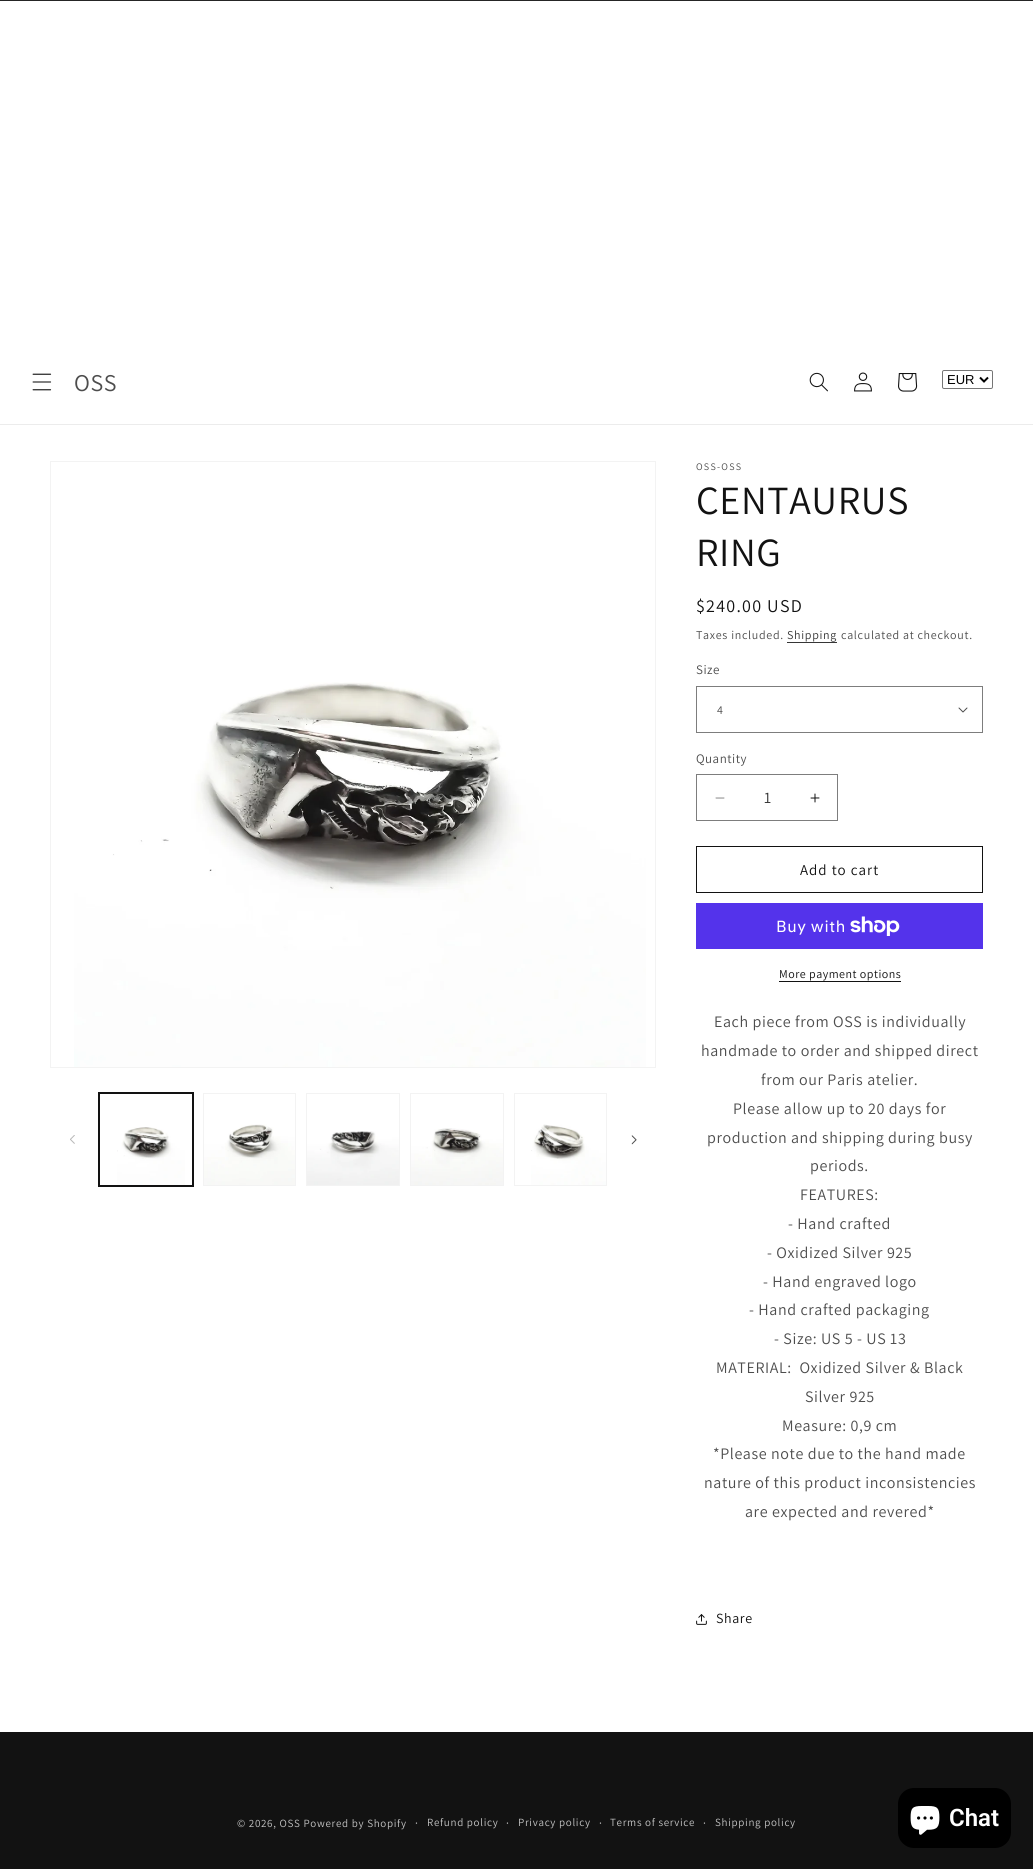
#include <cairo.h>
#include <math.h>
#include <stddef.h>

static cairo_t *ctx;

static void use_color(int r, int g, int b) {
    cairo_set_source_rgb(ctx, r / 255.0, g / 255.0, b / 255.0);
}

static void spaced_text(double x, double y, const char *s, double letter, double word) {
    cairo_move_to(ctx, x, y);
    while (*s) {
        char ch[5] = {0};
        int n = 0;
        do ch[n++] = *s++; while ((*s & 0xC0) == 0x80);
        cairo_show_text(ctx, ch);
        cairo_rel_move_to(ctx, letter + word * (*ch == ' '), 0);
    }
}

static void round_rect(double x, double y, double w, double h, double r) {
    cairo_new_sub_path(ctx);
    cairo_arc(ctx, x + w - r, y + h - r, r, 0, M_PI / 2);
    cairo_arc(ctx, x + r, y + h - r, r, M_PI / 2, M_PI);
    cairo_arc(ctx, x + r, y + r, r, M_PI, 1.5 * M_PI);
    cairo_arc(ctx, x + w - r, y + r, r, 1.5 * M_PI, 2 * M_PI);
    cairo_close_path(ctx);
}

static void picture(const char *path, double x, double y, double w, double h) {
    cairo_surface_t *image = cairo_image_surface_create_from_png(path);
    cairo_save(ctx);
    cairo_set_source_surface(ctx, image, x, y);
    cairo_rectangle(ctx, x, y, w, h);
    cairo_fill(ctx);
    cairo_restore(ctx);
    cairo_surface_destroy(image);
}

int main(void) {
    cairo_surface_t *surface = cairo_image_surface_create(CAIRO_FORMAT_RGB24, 1033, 1869);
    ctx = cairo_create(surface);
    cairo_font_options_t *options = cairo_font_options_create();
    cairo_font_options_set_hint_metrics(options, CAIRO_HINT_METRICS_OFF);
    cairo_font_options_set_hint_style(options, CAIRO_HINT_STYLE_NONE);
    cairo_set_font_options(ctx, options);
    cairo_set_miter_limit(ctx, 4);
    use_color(255, 255, 255);
    cairo_paint(ctx);
    use_color(37, 37, 37);
    cairo_rectangle(ctx, 0, 0, 1033, 1);
    cairo_fill(ctx);
    use_color(236, 236, 236);
    cairo_rectangle(ctx, 0, 424, 1033, 1);
    cairo_fill(ctx);
    picture("img1.png", 32, 373, 20, 18);
    cairo_select_font_face(ctx, "Assistant", CAIRO_FONT_SLANT_NORMAL, CAIRO_FONT_WEIGHT_NORMAL);
    cairo_set_font_size(ctx, 24);
    use_color(77, 77, 77);
    spaced_text(74, 391, "OSS", 0.6, 0);
    picture("img2.png", 809, 372, 19, 20);
    picture("img3.png", 854, 372, 18, 20);
    picture("img4.png", 898, 373, 20, 19);
    round_rect(942.5, 370.5, 50, 18, 1.5);
    use_color(118, 118, 118);
    cairo_set_line_width(ctx, 1);
    cairo_stroke(ctx);
    cairo_new_path(ctx);
    cairo_move_to(ctx, 980, 377.5);
    cairo_line_to(ctx, 984, 381.5);
    cairo_line_to(ctx, 988, 377.5);
    use_color(0, 0, 0);
    cairo_set_line_width(ctx, 2);
    cairo_stroke(ctx);
    cairo_select_font_face(ctx, "Liberation Sans", CAIRO_FONT_SLANT_NORMAL, CAIRO_FONT_WEIGHT_NORMAL);
    cairo_set_font_size(ctx, 13);
    cairo_move_to(ctx, 947, 384);
    cairo_show_text(ctx, "EUR");
    cairo_rectangle(ctx, 50.5, 461.5, 605, 606);
    use_color(243, 243, 243);
    cairo_set_line_width(ctx, 1);
    cairo_stroke(ctx);
    picture("img5.png", 74, 682, 572, 385);
    picture("img6.png", 70, 1135, 5, 9);
    cairo_rectangle(ctx, 98.5, 1092.5, 95, 94);
    use_color(18, 18, 18);
    cairo_stroke(ctx);
    cairo_rectangle(ctx, 99.5, 1093.5, 93, 92);
    cairo_stroke(ctx);
    picture("img7.png", 117, 1127, 68, 58);
    cairo_rectangle(ctx, 203.5, 1093.5, 92, 92);
    use_color(243, 243, 243);
    cairo_stroke(ctx);
    picture("img8.png", 204, 1124, 91, 61);
    cairo_rectangle(ctx, 306.5, 1093.5, 93, 92);
    cairo_stroke(ctx);
    picture("img9.png", 307, 1131, 92, 54);
    cairo_rectangle(ctx, 410.5, 1093.5, 93, 92);
    cairo_stroke(ctx);
    picture("img10.png", 411, 1128, 92, 57);
    cairo_rectangle(ctx, 514.5, 1093.5, 92, 92);
    cairo_stroke(ctx);
    picture("img11.png", 531, 1124, 75, 61);
    picture("img12.png", 631, 1135, 6, 10);
    cairo_select_font_face(ctx, "Assistant", CAIRO_FONT_SLANT_NORMAL, CAIRO_FONT_WEIGHT_NORMAL);
    cairo_set_font_size(ctx, 10);
    use_color(77, 77, 77);
    spaced_text(696, 470, "OSS-OSS", 1.25, 0);
    cairo_set_font_size(ctx, 40);
    use_color(18, 18, 18);
    spaced_text(696, 514, "CENTAURUS", 0.6, 0);
    spaced_text(696, 566, "RING", 0.6, 0);
    cairo_set_font_size(ctx, 18);
    spaced_text(696, 612, "$240.00 USD", 1.25, 0);
    cairo_set_font_size(ctx, 12);
    use_color(77, 77, 77);
    spaced_text(696, 639, "Taxes included.", 0.7, 0);
    use_color(54, 54, 54);
    spaced_text(787, 639, "Shipping", 0.7, 0);
    cairo_rectangle(ctx, 787, 642, 50, 1);
    cairo_fill(ctx);
    use_color(77, 77, 77);
    spaced_text(841, 639, "calculated at checkout.", 0.7, 0);
    cairo_set_font_size(ctx, 13);
    spaced_text(696, 674, "Size", 0.5, 0);
    picture("img13.png", 958, 707, 10, 6);
    cairo_rectangle(ctx, 696.5, 686.5, 286, 46);
    use_color(125, 125, 125);
    cairo_stroke(ctx);
    cairo_set_font_size(ctx, 12);
    use_color(77, 77, 77);
    spaced_text(717, 714, "4", 0.5, 0);
    cairo_set_font_size(ctx, 13);
    spaced_text(696, 763, "Quantity", 0.5, 0);
    picture("img14.png", 715, 797, 10, 2);
    picture("img15.png", 810, 793, 10, 10);
    cairo_rectangle(ctx, 696.5, 774.5, 141, 46);
    use_color(125, 125, 125);
    cairo_stroke(ctx);
    cairo_set_font_size(ctx, 16);
    use_color(54, 54, 54);
    cairo_move_to(ctx, 764, 803);
    cairo_show_text(ctx, "1");
    cairo_rectangle(ctx, 696.5, 846.5, 286, 46);
    use_color(18, 18, 18);
    cairo_stroke(ctx);
    cairo_set_font_size(ctx, 15);
    spaced_text(800, 875, "Add to cart", 1, 0);
    use_color(84, 51, 235);
    cairo_rectangle(ctx, 696, 903, 287, 46);
    cairo_fill(ctx);
    cairo_select_font_face(ctx, "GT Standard", CAIRO_FONT_SLANT_NORMAL, CAIRO_FONT_WEIGHT_NORMAL);
    cairo_set_font_size(ctx, 16);
    use_color(255, 255, 255);
    spaced_text(776, 932, "Buy with", 0.6, 0);
    picture("img16.png", 850, 916, 50, 20);
    cairo_select_font_face(ctx, "Assistant", CAIRO_FONT_SLANT_NORMAL, CAIRO_FONT_WEIGHT_NORMAL);
    cairo_set_font_size(ctx, 12);
    use_color(18, 18, 18);
    spaced_text(779, 978, "More payment options", 0.5, 0);
    cairo_rectangle(ctx, 779, 981, 122, 1);
    cairo_fill(ctx);
    cairo_set_font_size(ctx, 16);
    use_color(77, 77, 77);
    spaced_text(714, 1027, "Each piece from OSS is individually", 0.6, 0);
    spaced_text(701, 1056, "handmade to order and shipped direct", 0.6, 0);
    spaced_text(761, 1085, "from our Paris atelier.", 0.6, 0);
    spaced_text(733, 1114, "Please allow up to 20 days for", 0.6, 0);
    spaced_text(707, 1143, "production and shipping during busy", 0.6, 0);
    spaced_text(810, 1171, "periods.", 0.6, 0);
    spaced_text(800, 1200, "FEATURES:", 0.6, 0);
    spaced_text(788, 1229, "- Hand crafted", 0.6, 0);
    spaced_text(767, 1258, "- Oxidized Silver 925", 0.6, 0);
    spaced_text(763, 1287, "- Hand engraved logo", 0.6, 0);
    spaced_text(749, 1315, "- Hand crafted packaging", 0.6, 0);
    spaced_text(774, 1344, "- Size: US 5 - US 13", 0.6, 0);
    spaced_text(716, 1373, "MATERIAL:  Oxidized Silver & Black", 0.6, 0);
    spaced_text(805, 1402, "Silver 925", 0.6, 0);
    spaced_text(782, 1431, "Measure: 0,9 cm", 0.6, 0);
    spaced_text(713, 1459, "*Please note due to the hand made", 0.6, 0);
    spaced_text(704, 1488, "nature of this product inconsistencies", 0.6, 0);
    spaced_text(745, 1517, "are expected and revered*", 0.6, 0);
    picture("img17.png", 696, 1614, 11, 11);
    cairo_set_font_size(ctx, 14);
    use_color(18, 18, 18);
    spaced_text(716, 1623, "Share", 0.6, 0);
    cairo_rectangle(ctx, 0, 1732, 1033, 137);
    cairo_fill(ctx);
    cairo_set_font_size(ctx, 11);
    use_color(196, 196, 196);
    spaced_text(237, 1827, "© 2026, OSS Powered by Shopify", 0.7, 0);
    cairo_set_font_size(ctx, 12);
    spaced_text(415, 1827, "·", 0.7, 0);
    cairo_set_font_size(ctx, 11);
    spaced_text(427, 1826, "Refund policy", 0.7, 0);
    cairo_set_font_size(ctx, 12);
    spaced_text(506, 1827, "·", 0.7, 0);
    cairo_set_font_size(ctx, 11);
    spaced_text(518, 1826, "Privacy policy", 0.7, 0);
    cairo_set_font_size(ctx, 12);
    spaced_text(599, 1827, "·", 0.7, 0);
    cairo_set_font_size(ctx, 11);
    spaced_text(610, 1826, "Terms of service", 0.7, 0);
    cairo_set_font_size(ctx, 12);
    spaced_text(703, 1827, "·", 0.7, 0);
    cairo_set_font_size(ctx, 11);
    spaced_text(715, 1826, "Shipping policy", 0.7, 0);
    use_color(0, 0, 0);
    round_rect(898, 1788, 113, 60, 16);
    cairo_fill(ctx);
    picture("img18.png", 910, 1806, 30, 29);
    cairo_select_font_face(ctx, "Roboto SemiBold", CAIRO_FONT_SLANT_NORMAL, CAIRO_FONT_WEIGHT_NORMAL);
    cairo_set_font_size(ctx, 24);
    use_color(255, 255, 255);
    cairo_move_to(ctx, 949, 1826);
    cairo_show_text(ctx, "Chat");
    cairo_surface_write_to_png(surface, "result.png");
    cairo_font_options_destroy(options);
    cairo_destroy(ctx);
    cairo_surface_destroy(surface);
    return 0;
}
